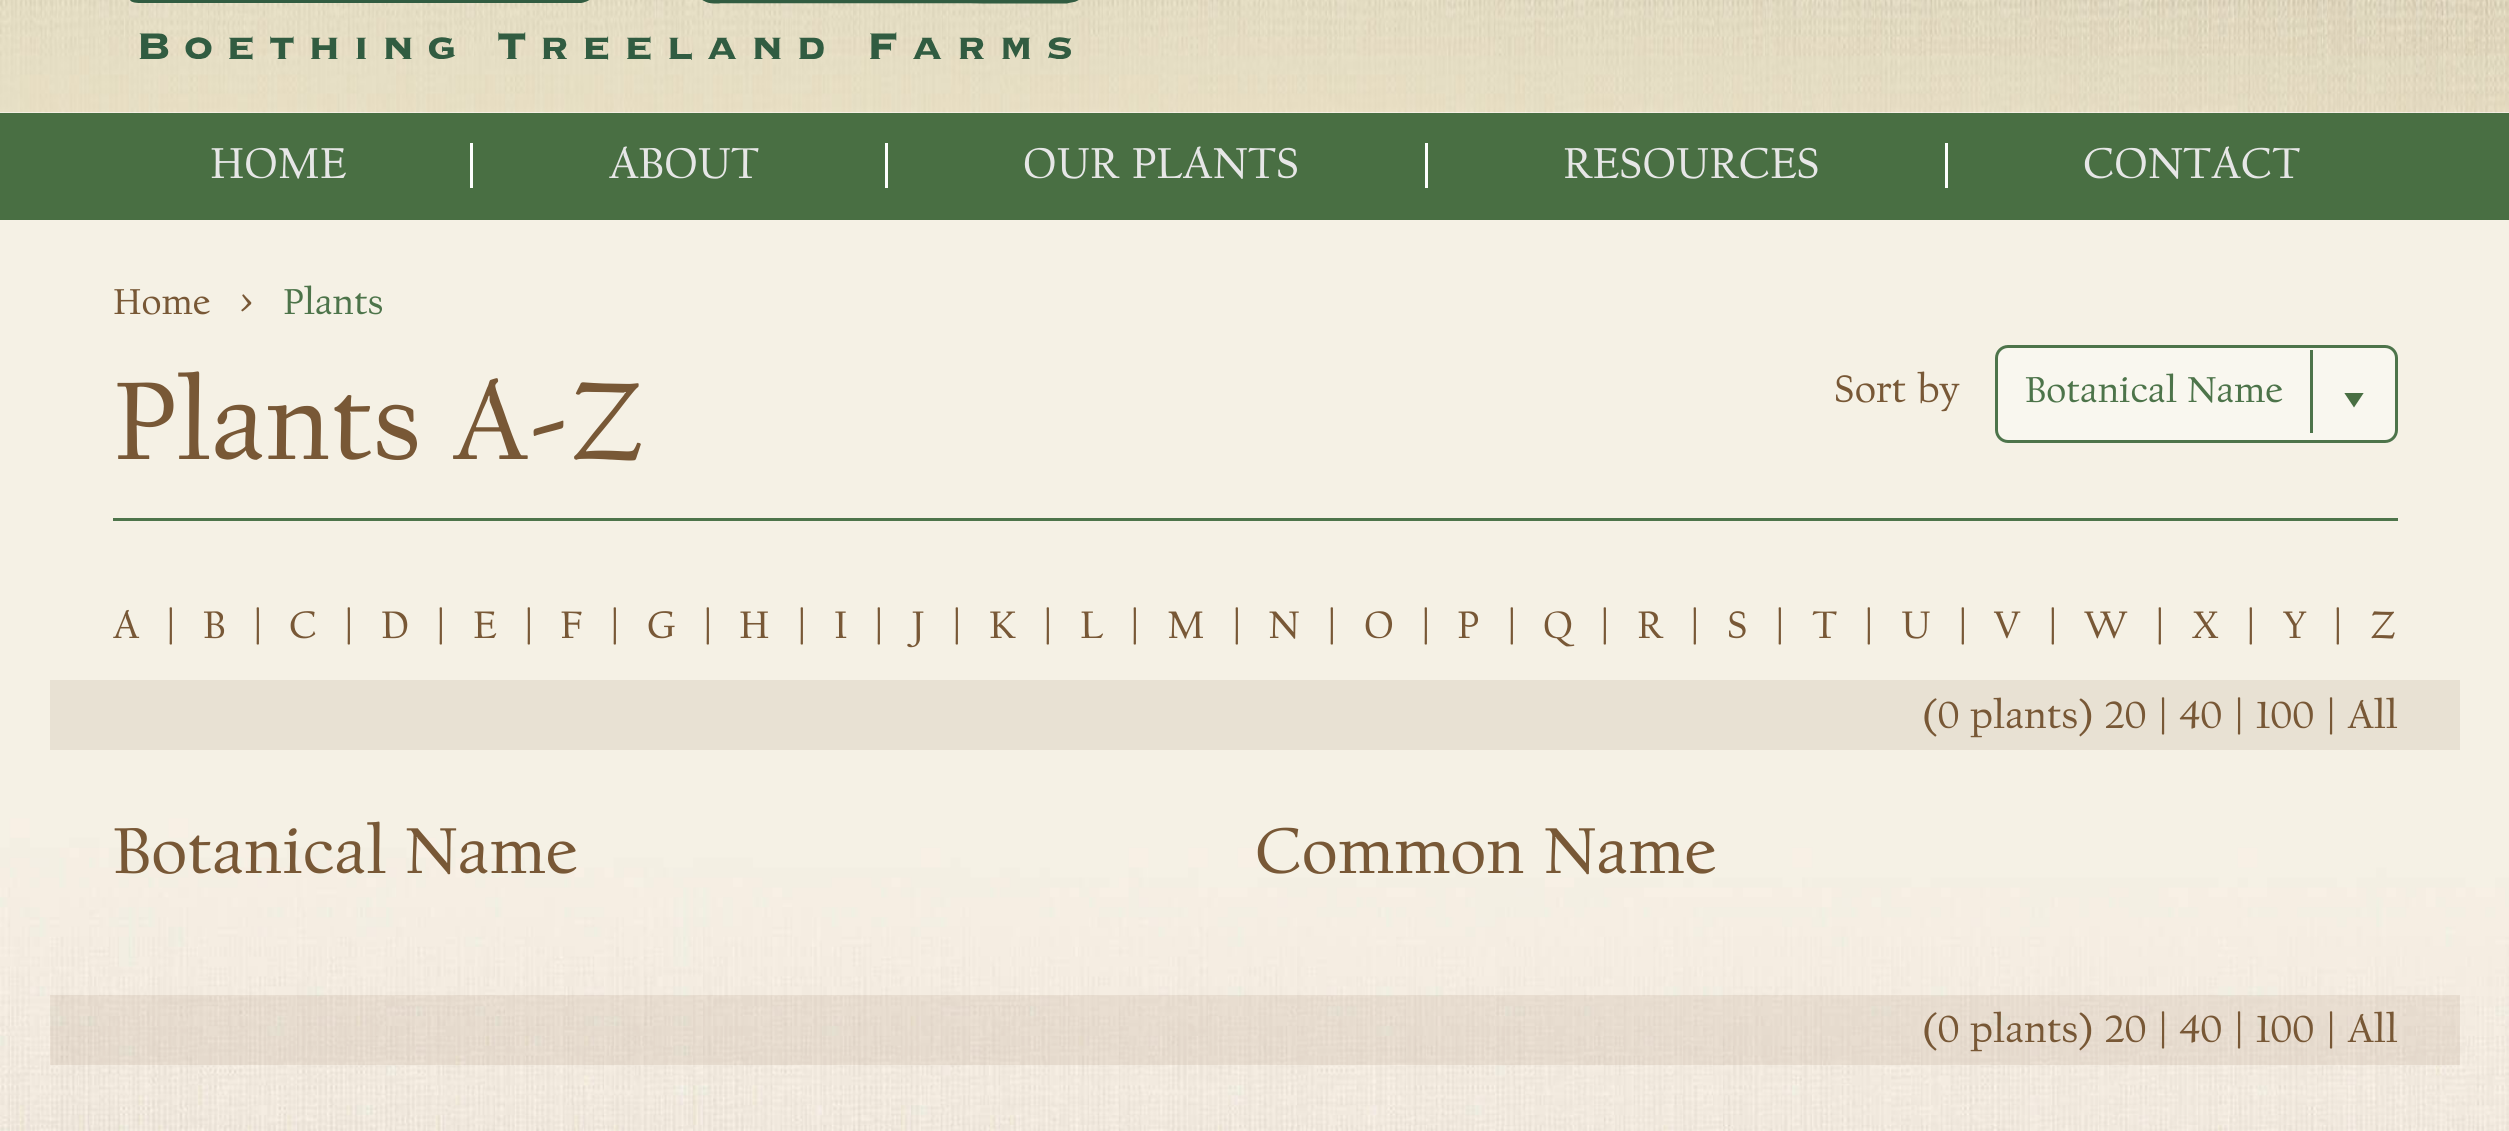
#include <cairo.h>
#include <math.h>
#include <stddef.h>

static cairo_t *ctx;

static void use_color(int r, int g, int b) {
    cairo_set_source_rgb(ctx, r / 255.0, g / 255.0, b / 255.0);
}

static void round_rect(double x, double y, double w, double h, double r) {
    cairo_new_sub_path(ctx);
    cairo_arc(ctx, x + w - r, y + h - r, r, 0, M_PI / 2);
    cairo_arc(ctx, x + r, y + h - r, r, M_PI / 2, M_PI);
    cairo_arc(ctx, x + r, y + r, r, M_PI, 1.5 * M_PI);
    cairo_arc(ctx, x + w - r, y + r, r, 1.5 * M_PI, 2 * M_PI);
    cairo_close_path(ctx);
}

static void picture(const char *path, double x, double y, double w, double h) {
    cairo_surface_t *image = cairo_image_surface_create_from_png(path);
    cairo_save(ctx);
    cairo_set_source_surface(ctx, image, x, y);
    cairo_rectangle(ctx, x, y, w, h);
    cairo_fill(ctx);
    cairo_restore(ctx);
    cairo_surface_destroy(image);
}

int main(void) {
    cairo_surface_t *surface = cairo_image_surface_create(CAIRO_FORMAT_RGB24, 2509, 1131);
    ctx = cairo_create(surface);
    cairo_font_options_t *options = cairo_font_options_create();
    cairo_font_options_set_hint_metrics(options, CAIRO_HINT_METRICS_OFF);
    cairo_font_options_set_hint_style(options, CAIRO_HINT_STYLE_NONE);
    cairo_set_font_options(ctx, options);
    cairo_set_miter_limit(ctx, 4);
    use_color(255, 255, 255);
    cairo_paint(ctx);
    picture("img1.png", 0, 0, 2509, 113);
    picture("img2.png", 130, 0, 949, 60);
    use_color(73, 111, 67);
    cairo_rectangle(ctx, 0, 113, 2509, 107);
    cairo_fill(ctx);
    use_color(254, 254, 254);
    cairo_rectangle(ctx, 470, 143, 3, 45);
    cairo_fill(ctx);
    cairo_select_font_face(ctx, "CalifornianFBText", CAIRO_FONT_SLANT_NORMAL, CAIRO_FONT_WEIGHT_NORMAL);
    cairo_set_font_size(ctx, 45);
    use_color(230, 230, 230);
    cairo_move_to(ctx, 210, 178);
    cairo_show_text(ctx, "HOME");
    use_color(254, 254, 254);
    cairo_rectangle(ctx, 885, 143, 3, 45);
    cairo_fill(ctx);
    use_color(230, 230, 230);
    cairo_move_to(ctx, 609, 178);
    cairo_show_text(ctx, "ABOUT");
    use_color(254, 254, 254);
    cairo_rectangle(ctx, 1425, 143, 3, 45);
    cairo_fill(ctx);
    use_color(230, 230, 230);
    cairo_move_to(ctx, 1023, 178);
    cairo_show_text(ctx, "OUR PLANTS");
    use_color(254, 254, 254);
    cairo_rectangle(ctx, 1945, 143, 3, 45);
    cairo_fill(ctx);
    use_color(230, 230, 230);
    cairo_move_to(ctx, 1563, 178);
    cairo_show_text(ctx, "RESOURCES");
    cairo_move_to(ctx, 2083, 178);
    cairo_show_text(ctx, "CONTACT");
    picture("img3.png", 0, 220, 2509, 911);
    cairo_set_font_size(ctx, 37.5);
    use_color(120, 88, 54);
    cairo_move_to(ctx, 113, 314);
    cairo_show_text(ctx, "Home");
    cairo_move_to(ctx, 240, 314);
    cairo_show_text(ctx, ">");
    use_color(77, 116, 74);
    cairo_move_to(ctx, 283, 314);
    cairo_show_text(ctx, "Plants");
    cairo_rectangle(ctx, 113, 518, 2285, 3);
    cairo_fill(ctx);
    cairo_set_font_size(ctx, 115);
    use_color(120, 88, 54);
    cairo_move_to(ctx, 113, 459);
    cairo_show_text(ctx, "Plants A-Z");
    cairo_set_font_size(ctx, 40);
    cairo_move_to(ctx, 1834, 402);
    cairo_show_text(ctx, "Sort by");
    use_color(249, 247, 239);
    round_rect(1995, 345, 403, 98, 13);
    cairo_fill(ctx);
    cairo_save(ctx);
    cairo_rectangle(ctx, 2343, 393, 22, 15);
    cairo_clip(ctx);
    use_color(73, 111, 67);
    cairo_new_path(ctx);
    cairo_move_to(ctx, 2344, 392.5);
    cairo_line_to(ctx, 2364, 392.5);
    cairo_line_to(ctx, 2354, 407.5);
    cairo_close_path(ctx);
    cairo_fill(ctx);
    cairo_restore(ctx);
    round_rect(1996.5, 346.5, 400, 95, 11.5);
    use_color(77, 116, 74);
    cairo_set_line_width(ctx, 3);
    cairo_stroke(ctx);
    cairo_set_font_size(ctx, 37.5);
    cairo_move_to(ctx, 2025, 402);
    cairo_show_text(ctx, "Botanical Name");
    cairo_rectangle(ctx, 2310, 350, 3, 83);
    cairo_fill(ctx);
    cairo_set_font_size(ctx, 40);
    use_color(120, 88, 54);
    cairo_move_to(ctx, 113, 638);
    cairo_show_text(ctx, "A");
    cairo_move_to(ctx, 165, 638);
    cairo_show_text(ctx, "|");
    cairo_move_to(ctx, 203, 638);
    cairo_show_text(ctx, "B");
    cairo_move_to(ctx, 252, 638);
    cairo_show_text(ctx, "|");
    cairo_move_to(ctx, 289, 638);
    cairo_show_text(ctx, "C");
    cairo_move_to(ctx, 343, 638);
    cairo_show_text(ctx, "|");
    cairo_move_to(ctx, 381, 638);
    cairo_show_text(ctx, "D");
    cairo_move_to(ctx, 435, 638);
    cairo_show_text(ctx, "|");
    cairo_move_to(ctx, 473, 638);
    cairo_show_text(ctx, "E");
    cairo_move_to(ctx, 523, 638);
    cairo_show_text(ctx, "|");
    cairo_move_to(ctx, 560, 638);
    cairo_show_text(ctx, "F");
    cairo_move_to(ctx, 609, 638);
    cairo_show_text(ctx, "|");
    cairo_move_to(ctx, 647, 638);
    cairo_show_text(ctx, "G");
    cairo_move_to(ctx, 702, 638);
    cairo_show_text(ctx, "|");
    cairo_move_to(ctx, 739, 638);
    cairo_show_text(ctx, "H");
    cairo_move_to(ctx, 796, 638);
    cairo_show_text(ctx, "|");
    cairo_move_to(ctx, 834, 638);
    cairo_show_text(ctx, "I");
    cairo_move_to(ctx, 873, 638);
    cairo_show_text(ctx, "|");
    cairo_move_to(ctx, 911, 638);
    cairo_show_text(ctx, "J");
    cairo_move_to(ctx, 951, 638);
    cairo_show_text(ctx, "|");
    cairo_move_to(ctx, 989, 638);
    cairo_show_text(ctx, "K");
    cairo_move_to(ctx, 1042, 638);
    cairo_show_text(ctx, "|");
    cairo_move_to(ctx, 1080, 638);
    cairo_show_text(ctx, "L");
    cairo_move_to(ctx, 1129, 638);
    cairo_show_text(ctx, "|");
    cairo_move_to(ctx, 1167, 638);
    cairo_show_text(ctx, "M");
    cairo_move_to(ctx, 1231, 638);
    cairo_show_text(ctx, "|");
    cairo_move_to(ctx, 1268, 638);
    cairo_show_text(ctx, "N");
    cairo_move_to(ctx, 1326, 638);
    cairo_show_text(ctx, "|");
    cairo_move_to(ctx, 1364, 638);
    cairo_show_text(ctx, "O");
    cairo_move_to(ctx, 1420, 638);
    cairo_show_text(ctx, "|");
    cairo_move_to(ctx, 1457, 638);
    cairo_show_text(ctx, "P");
    cairo_move_to(ctx, 1506, 638);
    cairo_show_text(ctx, "|");
    cairo_move_to(ctx, 1543, 638);
    cairo_show_text(ctx, "Q");
    cairo_move_to(ctx, 1599, 638);
    cairo_show_text(ctx, "|");
    cairo_move_to(ctx, 1637, 638);
    cairo_show_text(ctx, "R");
    cairo_move_to(ctx, 1689, 638);
    cairo_show_text(ctx, "|");
    cairo_move_to(ctx, 1727, 638);
    cairo_show_text(ctx, "S");
    cairo_move_to(ctx, 1774, 638);
    cairo_show_text(ctx, "|");
    cairo_move_to(ctx, 1812, 638);
    cairo_show_text(ctx, "T");
    cairo_move_to(ctx, 1863, 638);
    cairo_show_text(ctx, "|");
    cairo_move_to(ctx, 1901, 638);
    cairo_show_text(ctx, "U");
    cairo_move_to(ctx, 1957, 638);
    cairo_show_text(ctx, "|");
    cairo_move_to(ctx, 1994, 638);
    cairo_show_text(ctx, "V");
    cairo_move_to(ctx, 2047, 638);
    cairo_show_text(ctx, "|");
    cairo_move_to(ctx, 2084, 638);
    cairo_show_text(ctx, "W");
    cairo_move_to(ctx, 2154, 638);
    cairo_show_text(ctx, "|");
    cairo_move_to(ctx, 2192, 638);
    cairo_show_text(ctx, "X");
    cairo_move_to(ctx, 2245, 638);
    cairo_show_text(ctx, "|");
    cairo_move_to(ctx, 2283, 638);
    cairo_show_text(ctx, "Y");
    cairo_move_to(ctx, 2332, 638);
    cairo_show_text(ctx, "|");
    cairo_move_to(ctx, 2370, 638);
    cairo_show_text(ctx, "Z");
    use_color(232, 225, 211);
    cairo_rectangle(ctx, 50, 680, 2410, 70);
    cairo_fill(ctx);
    use_color(120, 88, 54);
    cairo_move_to(ctx, 1922, 728);
    cairo_show_text(ctx, "(0 plants) 20 | 40 | 100 | All");
    cairo_set_font_size(ctx, 67.5);
    cairo_move_to(ctx, 113, 873);
    cairo_show_text(ctx, "Botanical Name");
    cairo_move_to(ctx, 1255, 873);
    cairo_show_text(ctx, "Common Name");
    cairo_set_source_rgba(ctx, 0.471, 0.345, 0.212, 0.1);
    cairo_rectangle(ctx, 50, 995, 2410, 70);
    cairo_fill(ctx);
    cairo_set_font_size(ctx, 40);
    use_color(120, 88, 54);
    cairo_move_to(ctx, 1922, 1042);
    cairo_show_text(ctx, "(0 plants) 20 | 40 | 100 | All");
    cairo_surface_write_to_png(surface, "result.png");
    cairo_font_options_destroy(options);
    cairo_destroy(ctx);
    cairo_surface_destroy(surface);
    return 0;
}
